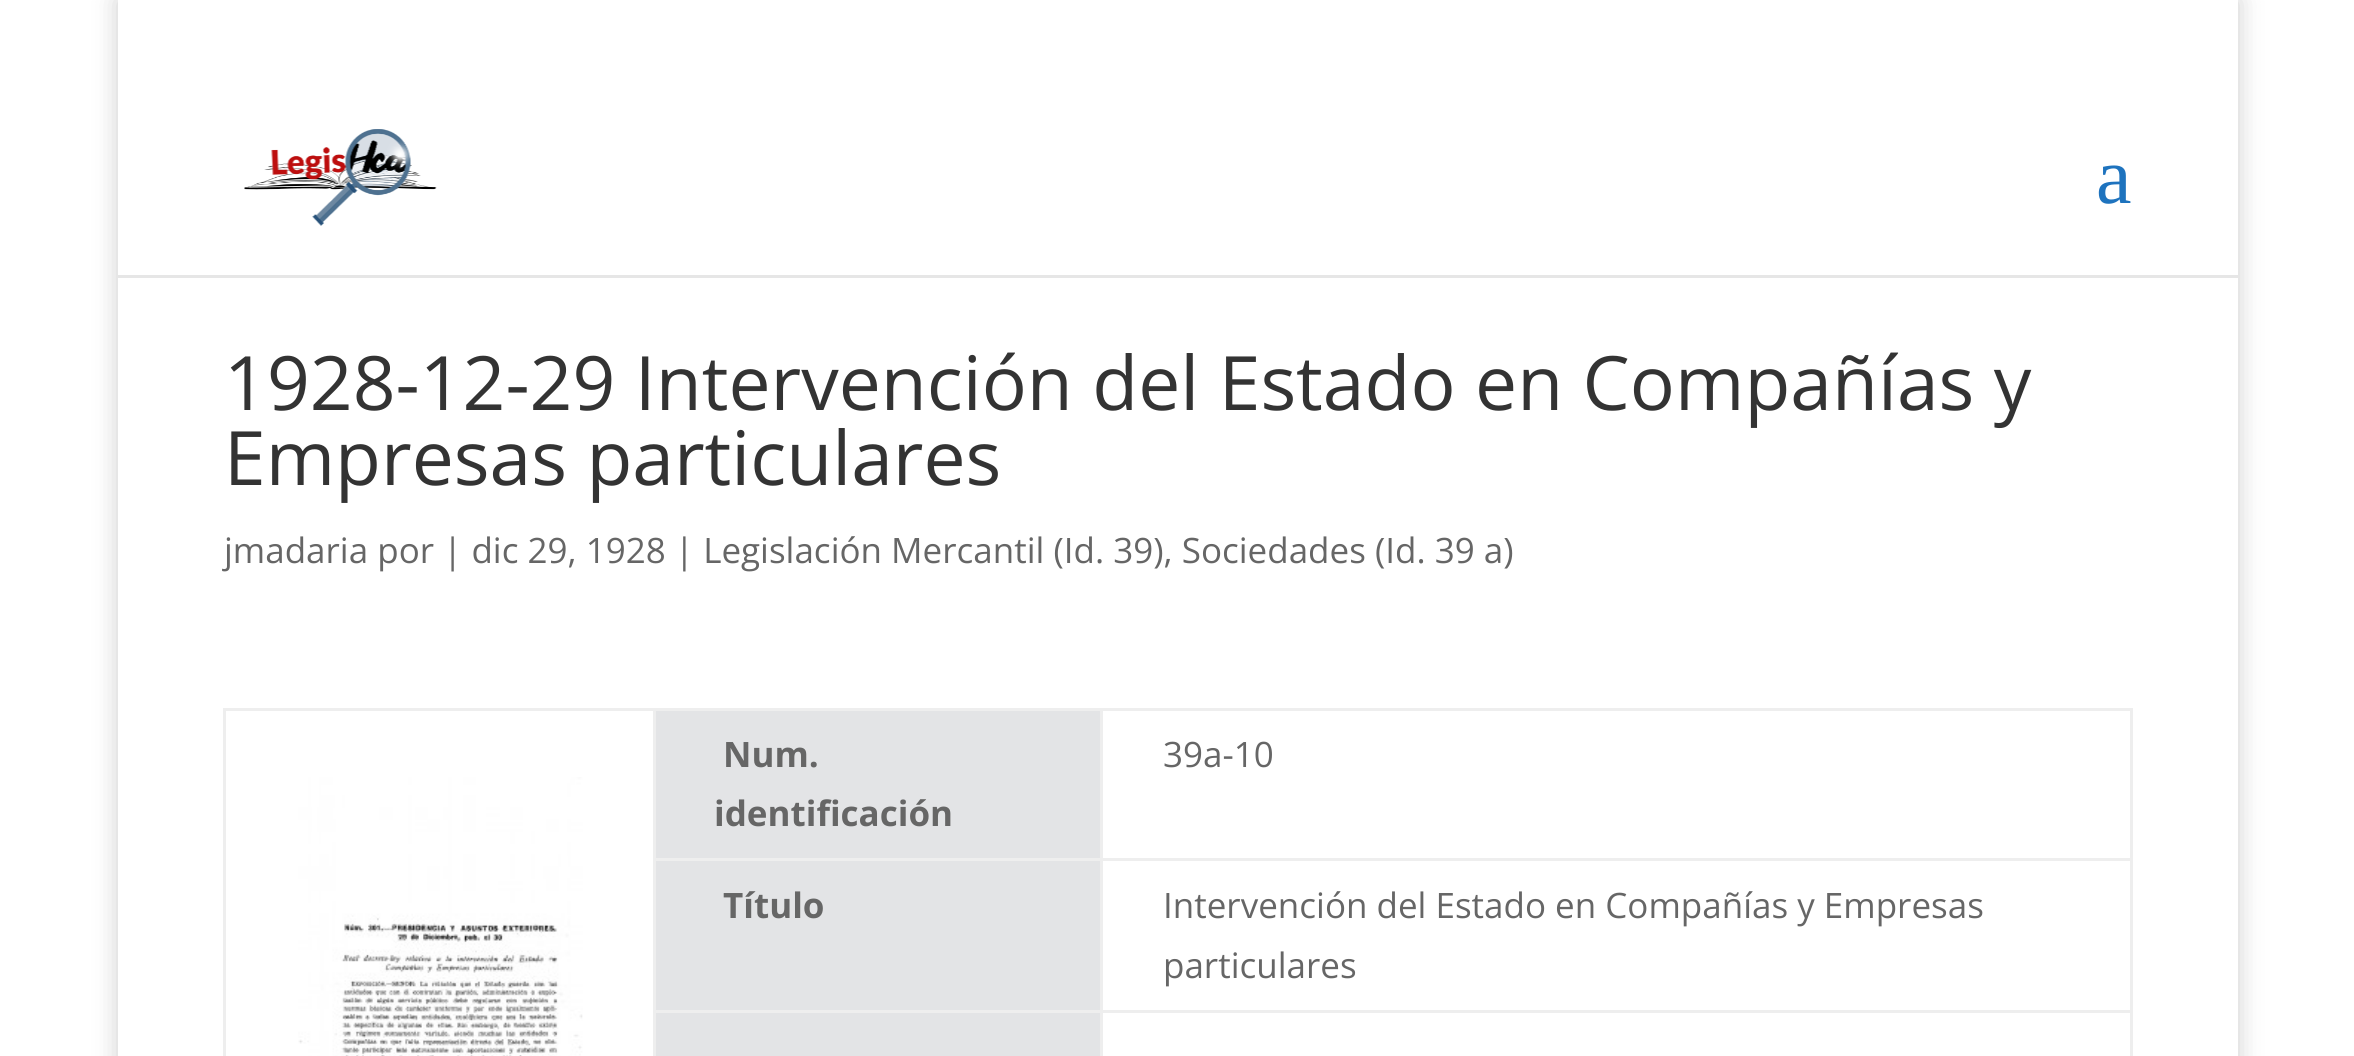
#include <cairo.h>
#include <math.h>
#include <stddef.h>

static cairo_t *ctx;

static void use_color(int r, int g, int b) {
    cairo_set_source_rgb(ctx, r / 255.0, g / 255.0, b / 255.0);
}

static void round_rect(double x, double y, double w, double h, double r) {
    cairo_new_sub_path(ctx);
    cairo_arc(ctx, x + w - r, y + h - r, r, 0, M_PI / 2);
    cairo_arc(ctx, x + r, y + h - r, r, M_PI / 2, M_PI);
    cairo_arc(ctx, x + r, y + r, r, M_PI, 1.5 * M_PI);
    cairo_arc(ctx, x + w - r, y + r, r, 1.5 * M_PI, 2 * M_PI);
    cairo_close_path(ctx);
}

static void shadow(double x, double y, double w, double h, double r, double blur, double alpha) {
    cairo_push_group_with_content(ctx, CAIRO_CONTENT_ALPHA);
    cairo_set_operator(ctx, CAIRO_OPERATOR_SOURCE);
    for (int i = 15; i >= -15 && fmin(w, h) + blur * i / 3 > 0; i -= 2) {
        double e = blur * i / 6;
        cairo_set_source_rgba(ctx, 0, 0, 0, alpha * erfc((i - 1) / 8.5) / 2);
        round_rect(x - e, y - e, w + 2 * e, h + 2 * e, fmax(0, fmin(r + e + blur * .6, fmin(w, h) / 2 + e)));
        cairo_fill(ctx);
    }
    cairo_pattern_t *soft = cairo_pop_group(ctx);
    cairo_mask(ctx, soft);
    cairo_pattern_destroy(soft);
}

static void picture(const char *path, double x, double y, double w, double h) {
    cairo_surface_t *image = cairo_image_surface_create_from_png(path);
    cairo_save(ctx);
    cairo_set_source_surface(ctx, image, x, y);
    cairo_rectangle(ctx, x, y, w, h);
    cairo_fill(ctx);
    cairo_restore(ctx);
    cairo_surface_destroy(image);
}

int main(void) {
    cairo_surface_t *surface = cairo_image_surface_create(CAIRO_FORMAT_RGB24, 2354, 1056);
    ctx = cairo_create(surface);
    cairo_font_options_t *options = cairo_font_options_create();
    cairo_font_options_set_hint_metrics(options, CAIRO_HINT_METRICS_OFF);
    cairo_font_options_set_hint_style(options, CAIRO_HINT_STYLE_NONE);
    cairo_set_font_options(ctx, options);
    cairo_set_miter_limit(ctx, 4);
    use_color(255, 255, 255);
    cairo_paint(ctx);
    cairo_save(ctx);
    cairo_set_fill_rule(ctx, CAIRO_FILL_RULE_EVEN_ODD);
    cairo_new_path(ctx);
    cairo_move_to(ctx, 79, 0);
    cairo_line_to(ctx, 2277, 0);
    cairo_line_to(ctx, 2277, 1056);
    cairo_line_to(ctx, 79, 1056);
    cairo_close_path(ctx);
    cairo_move_to(ctx, 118, 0);
    cairo_line_to(ctx, 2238, 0);
    cairo_line_to(ctx, 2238, 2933);
    cairo_line_to(ctx, 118, 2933);
    cairo_close_path(ctx);
    cairo_clip(ctx);
    use_color(0, 0, 0);
    shadow(118, 0, 2120, 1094, 0, 12.5, 0.2);
    cairo_restore(ctx);
    use_color(230, 230, 230);
    cairo_new_path(ctx);
    cairo_move_to(ctx, 118, 275);
    cairo_line_to(ctx, 118, 278);
    cairo_line_to(ctx, 2238, 278);
    cairo_line_to(ctx, 2238, 78);
    cairo_line_to(ctx, 2238, 275);
    cairo_close_path(ctx);
    cairo_fill(ctx);
    use_color(255, 255, 255);
    cairo_rectangle(ctx, 2237, 75, 1, 200);
    cairo_fill(ctx);
    picture("img1.png", 244, 129, 193, 97);
    cairo_select_font_face(ctx, "Liberation Serif", CAIRO_FONT_SLANT_NORMAL, CAIRO_FONT_WEIGHT_NORMAL);
    cairo_set_font_size(ctx, 80);
    use_color(30, 115, 190);
    cairo_move_to(ctx, 2096, 203);
    cairo_show_text(ctx, "a");
    use_color(255, 255, 255);
    cairo_rectangle(ctx, 2237, 278, 1, 778);
    cairo_fill(ctx);
    cairo_select_font_face(ctx, "Open Sans", CAIRO_FONT_SLANT_NORMAL, CAIRO_FONT_WEIGHT_NORMAL);
    cairo_set_font_size(ctx, 75);
    use_color(51, 51, 51);
    cairo_move_to(ctx, 224, 410);
    cairo_show_text(ctx, "1928-12-29 Intervención del Estado en Compañías y");
    cairo_move_to(ctx, 224, 485);
    cairo_show_text(ctx, "Empresas particulares");
    cairo_set_font_size(ctx, 35);
    use_color(102, 102, 102);
    cairo_move_to(ctx, 224, 563);
    cairo_show_text(ctx, "jmadaria por | dic 29, 1928 | Legislación Mercantil (Id. 39), Sociedades (Id. 39 a)");
    use_color(238, 238, 238);
    cairo_rectangle(ctx, 223, 708, 1910, 3);
    cairo_fill(ctx);
    cairo_rectangle(ctx, 2130, 708, 3, 348);
    cairo_fill(ctx);
    cairo_rectangle(ctx, 223, 708, 3, 348);
    cairo_fill(ctx);
    picture("img2.png", 298, 777, 285, 279);
    use_color(227, 228, 230);
    cairo_rectangle(ctx, 656, 711, 444, 147);
    cairo_fill(ctx);
    cairo_select_font_face(ctx, "Open Sans", CAIRO_FONT_SLANT_NORMAL, CAIRO_FONT_WEIGHT_BOLD);
    use_color(102, 102, 102);
    cairo_move_to(ctx, 723, 767);
    cairo_show_text(ctx, "Num.");
    cairo_move_to(ctx, 714, 826);
    cairo_show_text(ctx, "identificación");
    use_color(238, 238, 238);
    cairo_rectangle(ctx, 1100, 858, 1033, 3);
    cairo_fill(ctx);
    cairo_rectangle(ctx, 1100, 1010, 1033, 3);
    cairo_fill(ctx);
    cairo_rectangle(ctx, 1100, 1010, 3, 46);
    cairo_fill(ctx);
    cairo_rectangle(ctx, 653, 1010, 450, 3);
    cairo_fill(ctx);
    cairo_rectangle(ctx, 1100, 858, 3, 155);
    cairo_fill(ctx);
    cairo_rectangle(ctx, 653, 858, 450, 3);
    cairo_fill(ctx);
    cairo_rectangle(ctx, 1100, 708, 3, 152);
    cairo_fill(ctx);
    cairo_select_font_face(ctx, "Open Sans", CAIRO_FONT_SLANT_NORMAL, CAIRO_FONT_WEIGHT_NORMAL);
    use_color(102, 102, 102);
    cairo_move_to(ctx, 1163, 767);
    cairo_show_text(ctx, "39a-10");
    use_color(227, 228, 230);
    cairo_rectangle(ctx, 656, 861, 444, 149);
    cairo_fill(ctx);
    use_color(238, 238, 238);
    cairo_rectangle(ctx, 653, 1010, 3, 46);
    cairo_fill(ctx);
    cairo_rectangle(ctx, 653, 708, 3, 305);
    cairo_fill(ctx);
    cairo_select_font_face(ctx, "Open Sans", CAIRO_FONT_SLANT_NORMAL, CAIRO_FONT_WEIGHT_BOLD);
    use_color(102, 102, 102);
    cairo_move_to(ctx, 723, 918);
    cairo_show_text(ctx, "Título");
    cairo_select_font_face(ctx, "Open Sans", CAIRO_FONT_SLANT_NORMAL, CAIRO_FONT_WEIGHT_NORMAL);
    cairo_move_to(ctx, 1163, 918);
    cairo_show_text(ctx, "Intervención del Estado en Compañías y Empresas");
    cairo_move_to(ctx, 1163, 978);
    cairo_show_text(ctx, "particulares");
    use_color(227, 228, 230);
    cairo_rectangle(ctx, 656, 1013, 444, 43);
    cairo_fill(ctx);
    cairo_surface_write_to_png(surface, "result.png");
    cairo_font_options_destroy(options);
    cairo_destroy(ctx);
    cairo_surface_destroy(surface);
    return 0;
}
